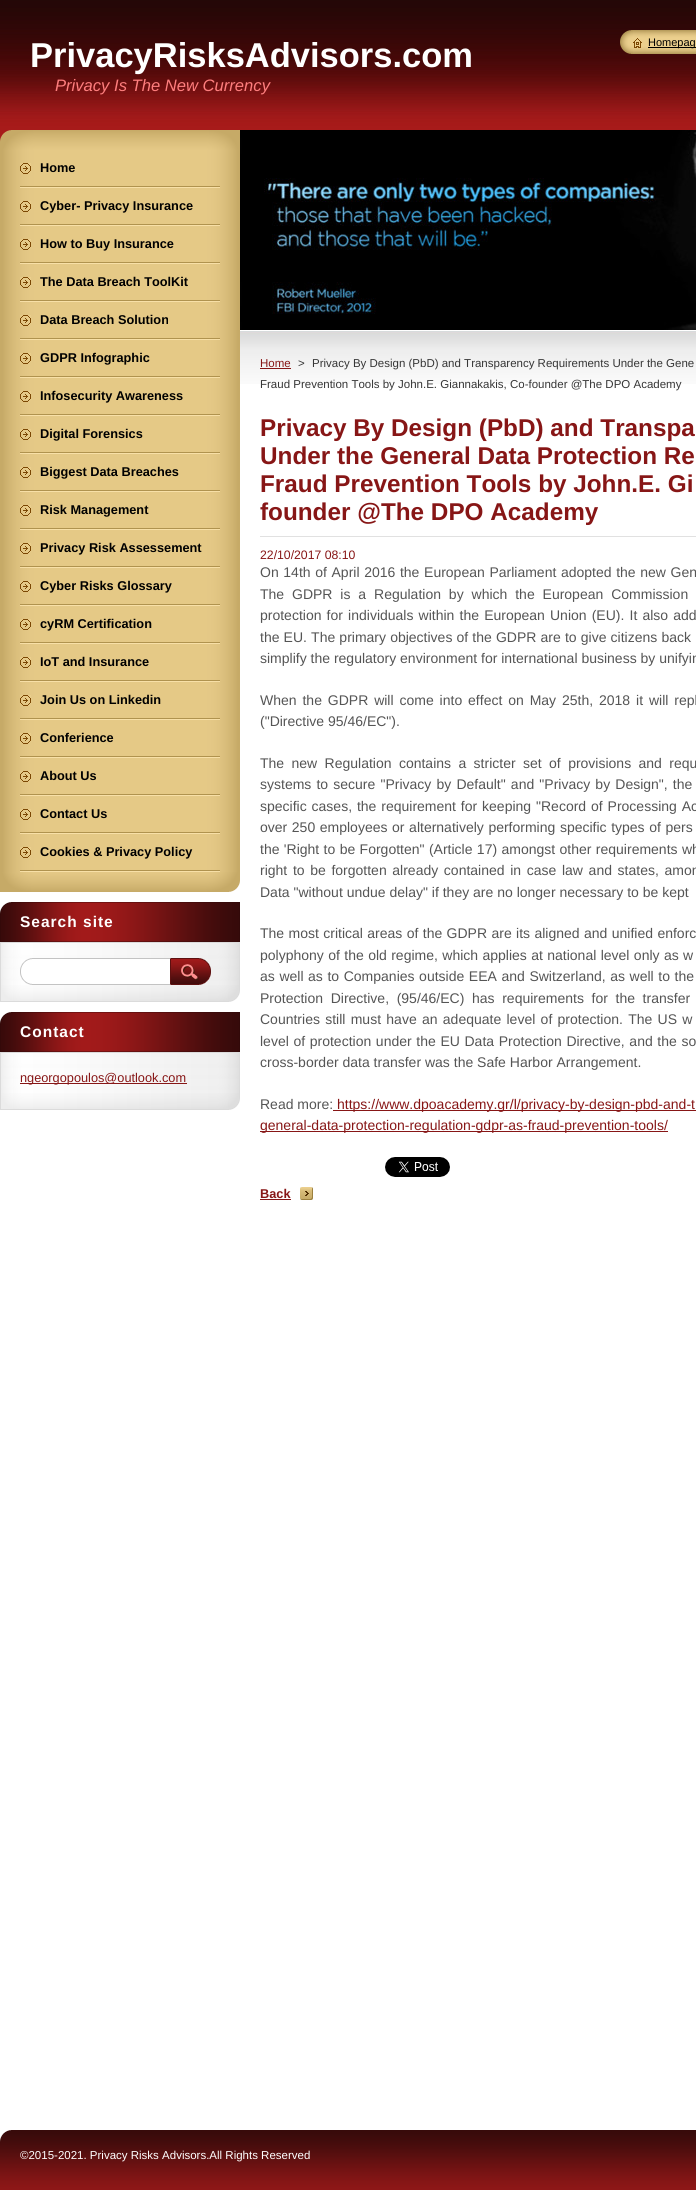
#include <cairo.h>
#include <math.h>
#include <stddef.h>

static cairo_t *ctx;

static void use_color(int r, int g, int b) {
    cairo_set_source_rgb(ctx, r / 255.0, g / 255.0, b / 255.0);
}

static void spaced_text(double x, double y, const char *s, double letter, double word) {
    cairo_move_to(ctx, x, y);
    while (*s) {
        char ch[5] = {0};
        int n = 0;
        do ch[n++] = *s++; while ((*s & 0xC0) == 0x80);
        cairo_show_text(ctx, ch);
        cairo_rel_move_to(ctx, letter + word * (*ch == ' '), 0);
    }
}

static void picture(const char *path, double x, double y, double w, double h) {
    cairo_surface_t *image = cairo_image_surface_create_from_png(path);
    cairo_save(ctx);
    cairo_set_source_surface(ctx, image, x, y);
    cairo_rectangle(ctx, x, y, w, h);
    cairo_fill(ctx);
    cairo_restore(ctx);
    cairo_surface_destroy(image);
}

int main(void) {
    cairo_surface_t *surface = cairo_image_surface_create(CAIRO_FORMAT_RGB24, 696, 2190);
    ctx = cairo_create(surface);
    cairo_font_options_t *options = cairo_font_options_create();
    cairo_font_options_set_hint_metrics(options, CAIRO_HINT_METRICS_OFF);
    cairo_font_options_set_hint_style(options, CAIRO_HINT_STYLE_NONE);
    cairo_set_font_options(ctx, options);
    cairo_set_miter_limit(ctx, 4);
    use_color(255, 255, 255);
    cairo_paint(ctx);
    picture("img1.png", 0, 0, 696, 384);
    cairo_select_font_face(ctx, "Liberation Sans", CAIRO_FONT_SLANT_NORMAL, CAIRO_FONT_WEIGHT_BOLD);
    cairo_set_font_size(ctx, 34.5);
    use_color(255, 255, 255);
    cairo_move_to(ctx, 30, 67);
    cairo_show_text(ctx, "PrivacyRisksAdvisors.com");
    cairo_select_font_face(ctx, "Liberation Sans", CAIRO_FONT_SLANT_ITALIC, CAIRO_FONT_WEIGHT_NORMAL);
    cairo_set_font_size(ctx, 16.6);
    use_color(255, 126, 126);
    cairo_move_to(ctx, 55, 91);
    cairo_show_text(ctx, "Privacy Is The New Currency");
    picture("img2.png", 620, 30, 13, 24);
    picture("img3.png", 633, 30, 63, 24);
    picture("img4.png", 633, 38, 9, 10);
    use_color(0, 0, 0);
    cairo_rectangle(ctx, 648, 47, 48, 1);
    cairo_fill(ctx);
    cairo_select_font_face(ctx, "Liberation Sans", CAIRO_FONT_SLANT_NORMAL, CAIRO_FONT_WEIGHT_NORMAL);
    cairo_set_font_size(ctx, 11);
    cairo_move_to(ctx, 648, 46);
    cairo_show_text(ctx, "Homepag");
    picture("img5.png", 0, 130, 240, 20);
    picture("img6.png", 0, 872, 240, 20);
    picture("img7.png", 0, 150, 240, 722);
    picture("img8.png", 20, 186, 200, 2);
    picture("img9.png", 20, 163, 11, 11);
    cairo_select_font_face(ctx, "Liberation Sans", CAIRO_FONT_SLANT_NORMAL, CAIRO_FONT_WEIGHT_BOLD);
    cairo_set_font_size(ctx, 12.75);
    cairo_move_to(ctx, 40, 172);
    cairo_show_text(ctx, "Home");
    picture("img8.png", 20, 224, 200, 2);
    picture("img9.png", 20, 201, 11, 11);
    cairo_move_to(ctx, 40, 210);
    cairo_show_text(ctx, "Cyber- Privacy Insurance");
    picture("img8.png", 20, 262, 200, 2);
    picture("img9.png", 20, 239, 11, 11);
    cairo_move_to(ctx, 40, 248);
    cairo_show_text(ctx, "How to Buy Insurance");
    picture("img8.png", 20, 300, 200, 2);
    picture("img9.png", 20, 277, 11, 11);
    cairo_move_to(ctx, 40, 286);
    cairo_show_text(ctx, "The Data Breach ToolKit");
    picture("img8.png", 20, 338, 200, 2);
    picture("img9.png", 20, 315, 11, 11);
    cairo_move_to(ctx, 40, 324);
    cairo_show_text(ctx, "Data Breach Solution");
    picture("img8.png", 20, 376, 200, 2);
    picture("img9.png", 20, 353, 11, 11);
    cairo_move_to(ctx, 40, 362);
    cairo_show_text(ctx, "GDPR Infographic");
    picture("img8.png", 20, 414, 200, 2);
    picture("img9.png", 20, 391, 11, 11);
    cairo_move_to(ctx, 40, 400);
    cairo_show_text(ctx, "Infosecurity Awareness");
    picture("img8.png", 20, 452, 200, 2);
    picture("img9.png", 20, 429, 11, 11);
    cairo_move_to(ctx, 40, 438);
    cairo_show_text(ctx, "Digital Forensics");
    picture("img8.png", 20, 490, 200, 2);
    picture("img9.png", 20, 467, 11, 11);
    cairo_move_to(ctx, 40, 476);
    cairo_show_text(ctx, "Biggest Data Breaches");
    picture("img8.png", 20, 528, 200, 2);
    picture("img9.png", 20, 505, 11, 11);
    cairo_move_to(ctx, 40, 514);
    cairo_show_text(ctx, "Risk Management");
    picture("img8.png", 20, 566, 200, 2);
    picture("img9.png", 20, 543, 11, 11);
    cairo_move_to(ctx, 40, 552);
    cairo_show_text(ctx, "Privacy Risk Assessement");
    picture("img8.png", 20, 604, 200, 2);
    picture("img9.png", 20, 581, 11, 11);
    cairo_move_to(ctx, 40, 590);
    cairo_show_text(ctx, "Cyber Risks Glossary");
    picture("img8.png", 20, 642, 200, 2);
    picture("img9.png", 20, 619, 11, 11);
    cairo_move_to(ctx, 40, 628);
    cairo_show_text(ctx, "cyRM Certification");
    picture("img8.png", 20, 680, 200, 2);
    picture("img9.png", 20, 657, 11, 11);
    cairo_move_to(ctx, 40, 666);
    cairo_show_text(ctx, "IoT and Insurance");
    picture("img8.png", 20, 718, 200, 2);
    picture("img9.png", 20, 695, 11, 11);
    cairo_move_to(ctx, 40, 704);
    cairo_show_text(ctx, "Join Us on Linkedin");
    picture("img8.png", 20, 756, 200, 2);
    picture("img9.png", 20, 733, 11, 11);
    cairo_move_to(ctx, 40, 742);
    cairo_show_text(ctx, "Conferience");
    picture("img8.png", 20, 794, 200, 2);
    picture("img9.png", 20, 771, 11, 11);
    cairo_move_to(ctx, 40, 780);
    cairo_show_text(ctx, "About Us");
    picture("img8.png", 20, 832, 200, 2);
    picture("img9.png", 20, 809, 11, 11);
    cairo_move_to(ctx, 40, 818);
    cairo_show_text(ctx, "Contact Us");
    picture("img8.png", 20, 870, 200, 2);
    picture("img9.png", 20, 847, 11, 11);
    cairo_move_to(ctx, 40, 856);
    cairo_show_text(ctx, "Cookies & Privacy Policy");
    picture("img10.png", 0, 985, 240, 17);
    picture("img11.png", 0, 902, 240, 40);
    cairo_set_font_size(ctx, 15.5);
    use_color(255, 255, 255);
    spaced_text(20, 927, "Search site", 1, 0);
    picture("img12.png", 0, 943, 240, 42);
    use_color(219, 219, 219);
    cairo_rectangle(ctx, 0, 942, 240, 1);
    cairo_fill(ctx);
    picture("img13.png", 20, 958, 150, 27);
    picture("img14.png", 170, 958, 41, 27);
    picture("img10.png", 0, 1093, 240, 17);
    picture("img11.png", 0, 1012, 240, 40);
    use_color(255, 255, 255);
    spaced_text(20, 1037, "Contact", 1, 0);
    picture("img15.png", 0, 1053, 240, 40);
    use_color(219, 219, 219);
    cairo_rectangle(ctx, 0, 1052, 240, 1);
    cairo_fill(ctx);
    use_color(135, 22, 22);
    cairo_rectangle(ctx, 20, 1083, 167, 1);
    cairo_fill(ctx);
    cairo_select_font_face(ctx, "Liberation Sans", CAIRO_FONT_SLANT_NORMAL, CAIRO_FONT_WEIGHT_NORMAL);
    cairo_set_font_size(ctx, 12.75);
    cairo_move_to(ctx, 20, 1082);
    cairo_show_text(ctx, "ngeorgopoulos@outlook.com");
    picture("img16.png", 240, 130, 456, 200);
    cairo_set_font_size(ctx, 11.5);
    cairo_move_to(ctx, 260, 367);
    cairo_show_text(ctx, "Home");
    cairo_rectangle(ctx, 260, 368, 31, 1);
    cairo_fill(ctx);
    use_color(54, 54, 54);
    cairo_move_to(ctx, 298, 367);
    cairo_show_text(ctx, ">");
    cairo_move_to(ctx, 312, 367);
    cairo_show_text(ctx, "Privacy By Design (PbD) and Transparency Requirements Under the Gene");
    cairo_move_to(ctx, 260, 388);
    cairo_show_text(ctx, "Fraud Prevention Tools by John.E. Giannakakis, Co-founder @The DPO Academy");
    use_color(225, 225, 225);
    cairo_rectangle(ctx, 260, 536, 436, 1);
    cairo_fill(ctx);
    cairo_select_font_face(ctx, "Liberation Sans", CAIRO_FONT_SLANT_NORMAL, CAIRO_FONT_WEIGHT_BOLD);
    cairo_set_font_size(ctx, 24.3);
    use_color(135, 22, 22);
    cairo_move_to(ctx, 260, 436);
    cairo_show_text(ctx, "Privacy By Design (PbD) and Transpa");
    cairo_move_to(ctx, 260, 464);
    cairo_show_text(ctx, "Under the General Data Protection Re");
    cairo_move_to(ctx, 260, 492);
    cairo_show_text(ctx, "Fraud Prevention Tools by John.E. Gi");
    cairo_move_to(ctx, 260, 520);
    cairo_show_text(ctx, "founder @The DPO Academy");
    cairo_select_font_face(ctx, "Liberation Sans", CAIRO_FONT_SLANT_NORMAL, CAIRO_FONT_WEIGHT_NORMAL);
    cairo_set_font_size(ctx, 12.25);
    cairo_move_to(ctx, 260, 559);
    cairo_show_text(ctx, "22/10/2017 08:10");
    cairo_set_font_size(ctx, 14);
    use_color(85, 85, 85);
    spaced_text(260, 577, "On 14th of April 2016 the European Parliament adopted the new Gen", 0, 0.75);
    spaced_text(260, 599, "The GDPR is a Regulation by which the European Commission", 0, 4);
    spaced_text(260, 620, "protection for individuals within the European Union (EU). It also add", 0, 1.25);
    spaced_text(260, 642, "the EU. The primary objectives of the GDPR are to give citizens back", 0, 0.25);
    cairo_move_to(ctx, 260, 663);
    cairo_show_text(ctx, "simplify the regulatory environment for international business by unifyin");
    spaced_text(260, 705, "When the GDPR will come into effect on May 25th, 2018 it will repl", 0, 2);
    cairo_move_to(ctx, 260, 726);
    cairo_show_text(ctx, "(\"Directive 95/46/EC\").");
    spaced_text(260, 768, "The new Regulation contains a stricter set of provisions and requ", 0, 3.5);
    spaced_text(260, 789, "systems to secure \"Privacy by Default\" and \"Privacy by Design\", the", 0, 1.25);
    spaced_text(260, 811, "specific cases, the requirement for keeping \"Record of Processing Ac", 0, 1);
    spaced_text(260, 832, "over 250 employees or alternatively performing specific types of pers", 0, 0.7);
    spaced_text(260, 854, "the 'Right to be Forgotten\" (Article 17) amongst other requirements wh", 0, 0.5);
    spaced_text(260, 875, "right to be forgotten already contained in case law and states, amon", 0, 1.75);
    cairo_move_to(ctx, 260, 897);
    cairo_show_text(ctx, "Data \"without undue delay\" if they are no longer necessary to be kept");
    spaced_text(260, 938, "The most critical areas of the GDPR are its aligned and unified enforc", 0, 0.5);
    spaced_text(260, 960, "polyphony of the old regime, which applies at national level only as w", 0, 0.5);
    spaced_text(260, 981, "as well as to Companies outside EEA and Switzerland, as well to the", 0, 0.7);
    spaced_text(260, 1003, "Protection Directive, (95/46/EC) has requirements for the transfer", 0, 3.75);
    spaced_text(260, 1024, "Countries still must have an adequate level of protection. The US w", 0, 1.4);
    spaced_text(260, 1046, "level of protection under the EU Data Protection Directive, and the so", 0, 0.75);
    cairo_move_to(ctx, 260, 1067);
    cairo_show_text(ctx, "cross-border data transfer was the Safe Harbor Arrangement.");
    cairo_move_to(ctx, 260, 1109);
    cairo_show_text(ctx, "Read more:");
    use_color(135, 22, 22);
    cairo_rectangle(ctx, 333, 1110, 363, 1);
    cairo_fill(ctx);
    cairo_move_to(ctx, 337, 1109);
    cairo_show_text(ctx, "https://www.dpoacademy.gr/l/privacy-by-design-pbd-and-t");
    cairo_rectangle(ctx, 260, 1131, 408, 1);
    cairo_fill(ctx);
    cairo_move_to(ctx, 260, 1130);
    cairo_show_text(ctx, "general-data-protection-regulation-gdpr-as-fraud-prevention-tools/");
    picture("img17.png", 385, 1157, 65, 20);
    picture("img18.png", 300, 1187, 13, 13);
    cairo_select_font_face(ctx, "Liberation Sans", CAIRO_FONT_SLANT_NORMAL, CAIRO_FONT_WEIGHT_BOLD);
    cairo_set_font_size(ctx, 12.75);
    cairo_move_to(ctx, 260, 1198);
    cairo_show_text(ctx, "Back");
    cairo_rectangle(ctx, 260, 1199, 31, 1);
    cairo_fill(ctx);
    picture("img19.png", 0, 2130, 696, 60);
    cairo_select_font_face(ctx, "Liberation Sans", CAIRO_FONT_SLANT_NORMAL, CAIRO_FONT_WEIGHT_NORMAL);
    cairo_set_font_size(ctx, 11.5);
    use_color(255, 255, 255);
    cairo_move_to(ctx, 20, 2159);
    cairo_show_text(ctx, "©2015-2021. Privacy Risks Advisors.All Rights Reserved");
    cairo_surface_write_to_png(surface, "result.png");
    cairo_font_options_destroy(options);
    cairo_destroy(ctx);
    cairo_surface_destroy(surface);
    return 0;
}
